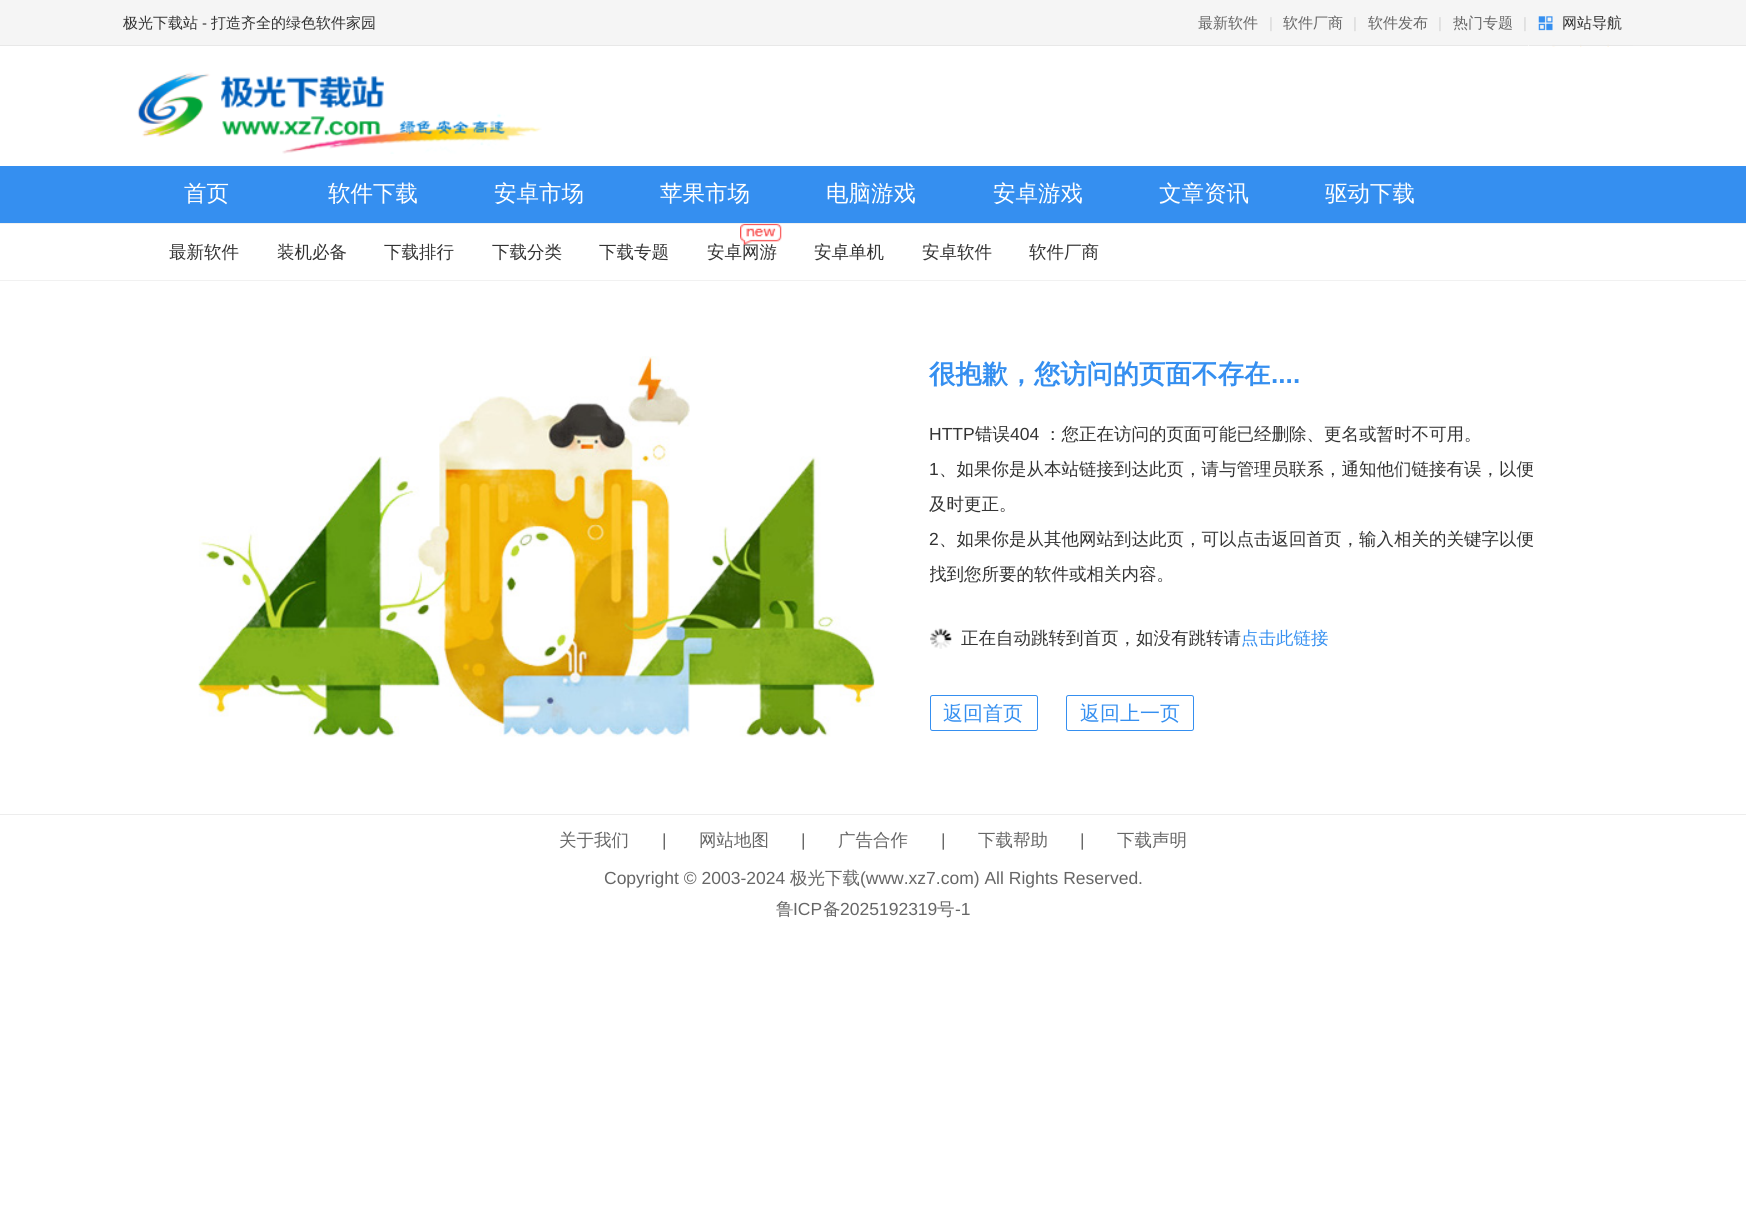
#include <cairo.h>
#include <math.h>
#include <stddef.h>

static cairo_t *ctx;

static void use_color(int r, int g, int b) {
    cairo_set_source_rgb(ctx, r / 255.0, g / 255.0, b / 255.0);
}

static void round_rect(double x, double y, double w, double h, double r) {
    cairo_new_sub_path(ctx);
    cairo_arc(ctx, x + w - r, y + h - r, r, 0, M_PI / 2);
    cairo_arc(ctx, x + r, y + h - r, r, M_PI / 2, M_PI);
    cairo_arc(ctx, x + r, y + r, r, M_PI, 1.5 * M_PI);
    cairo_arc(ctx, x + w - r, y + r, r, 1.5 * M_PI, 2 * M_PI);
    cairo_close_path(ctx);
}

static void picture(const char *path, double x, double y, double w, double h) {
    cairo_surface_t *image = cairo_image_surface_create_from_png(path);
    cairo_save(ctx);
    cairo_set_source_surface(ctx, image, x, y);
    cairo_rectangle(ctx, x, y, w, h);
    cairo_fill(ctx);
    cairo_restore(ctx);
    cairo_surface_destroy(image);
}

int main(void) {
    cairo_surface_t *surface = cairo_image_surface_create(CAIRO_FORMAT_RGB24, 1746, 1206);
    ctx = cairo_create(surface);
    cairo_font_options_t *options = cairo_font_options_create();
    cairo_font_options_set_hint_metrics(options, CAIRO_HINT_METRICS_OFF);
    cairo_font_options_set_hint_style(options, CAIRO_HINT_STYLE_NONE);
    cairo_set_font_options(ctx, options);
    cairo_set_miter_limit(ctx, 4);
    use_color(255, 255, 255);
    cairo_paint(ctx);
    use_color(245, 245, 245);
    cairo_rectangle(ctx, 0, 0, 1746, 45);
    cairo_fill(ctx);
    use_color(232, 232, 232);
    cairo_rectangle(ctx, 0, 45, 1746, 1);
    cairo_fill(ctx);
    cairo_select_font_face(ctx, "WenQuanYi Zen Hei Medium", CAIRO_FONT_SLANT_NORMAL, CAIRO_FONT_WEIGHT_NORMAL);
    cairo_set_font_size(ctx, 15);
    use_color(51, 51, 51);
    cairo_move_to(ctx, 123, 28);
    cairo_show_text(ctx, "极光下载站");
    cairo_select_font_face(ctx, "Liberation Sans", CAIRO_FONT_SLANT_NORMAL, CAIRO_FONT_WEIGHT_NORMAL);
    cairo_move_to(ctx, 202, 28);
    cairo_show_text(ctx, "-");
    cairo_select_font_face(ctx, "WenQuanYi Zen Hei Medium", CAIRO_FONT_SLANT_NORMAL, CAIRO_FONT_WEIGHT_NORMAL);
    cairo_move_to(ctx, 211, 28);
    cairo_show_text(ctx, "打造齐全的绿色软件家园");
    use_color(102, 102, 102);
    cairo_move_to(ctx, 1198, 28);
    cairo_show_text(ctx, "最新软件");
    cairo_select_font_face(ctx, "Liberation Sans", CAIRO_FONT_SLANT_NORMAL, CAIRO_FONT_WEIGHT_NORMAL);
    use_color(213, 213, 213);
    cairo_move_to(ctx, 1269, 28);
    cairo_show_text(ctx, "|");
    cairo_select_font_face(ctx, "WenQuanYi Zen Hei Medium", CAIRO_FONT_SLANT_NORMAL, CAIRO_FONT_WEIGHT_NORMAL);
    use_color(102, 102, 102);
    cairo_move_to(ctx, 1283, 28);
    cairo_show_text(ctx, "软件厂商");
    cairo_select_font_face(ctx, "Liberation Sans", CAIRO_FONT_SLANT_NORMAL, CAIRO_FONT_WEIGHT_NORMAL);
    use_color(213, 213, 213);
    cairo_move_to(ctx, 1353, 28);
    cairo_show_text(ctx, "|");
    cairo_select_font_face(ctx, "WenQuanYi Zen Hei Medium", CAIRO_FONT_SLANT_NORMAL, CAIRO_FONT_WEIGHT_NORMAL);
    use_color(102, 102, 102);
    cairo_move_to(ctx, 1368, 28);
    cairo_show_text(ctx, "软件发布");
    cairo_select_font_face(ctx, "Liberation Sans", CAIRO_FONT_SLANT_NORMAL, CAIRO_FONT_WEIGHT_NORMAL);
    use_color(213, 213, 213);
    cairo_move_to(ctx, 1438, 28);
    cairo_show_text(ctx, "|");
    cairo_select_font_face(ctx, "WenQuanYi Zen Hei Medium", CAIRO_FONT_SLANT_NORMAL, CAIRO_FONT_WEIGHT_NORMAL);
    use_color(102, 102, 102);
    cairo_move_to(ctx, 1453, 28);
    cairo_show_text(ctx, "热门专题");
    cairo_select_font_face(ctx, "Liberation Sans", CAIRO_FONT_SLANT_NORMAL, CAIRO_FONT_WEIGHT_NORMAL);
    use_color(213, 213, 213);
    cairo_move_to(ctx, 1523, 28);
    cairo_show_text(ctx, "|");
    picture("img1.png", 1538, 16, 71, 31);
    use_color(245, 245, 245);
    cairo_rectangle(ctx, 1631, 45, 1, 1);
    cairo_fill(ctx);
    use_color(230, 230, 230);
    cairo_rectangle(ctx, 1552, 45, 81, 1);
    cairo_fill(ctx);
    use_color(245, 245, 245);
    cairo_rectangle(ctx, 1528, 45, 1, 1);
    cairo_fill(ctx);
    cairo_select_font_face(ctx, "WenQuanYi Zen Hei Medium", CAIRO_FONT_SLANT_NORMAL, CAIRO_FONT_WEIGHT_NORMAL);
    use_color(51, 51, 51);
    cairo_move_to(ctx, 1562, 28);
    cairo_show_text(ctx, "网站导航");
    picture("img2.png", 137, 72, 405, 82);
    use_color(53, 143, 240);
    cairo_rectangle(ctx, 0, 166, 1746, 57);
    cairo_fill(ctx);
    cairo_set_font_size(ctx, 22.5);
    use_color(255, 255, 255);
    cairo_move_to(ctx, 184, 201);
    cairo_show_text(ctx, "首页");
    cairo_move_to(ctx, 328, 201);
    cairo_show_text(ctx, "软件下载");
    cairo_move_to(ctx, 494, 201);
    cairo_show_text(ctx, "安卓市场");
    cairo_move_to(ctx, 660, 201);
    cairo_show_text(ctx, "苹果市场");
    cairo_move_to(ctx, 826, 201);
    cairo_show_text(ctx, "电脑游戏");
    cairo_move_to(ctx, 993, 201);
    cairo_show_text(ctx, "安卓游戏");
    cairo_move_to(ctx, 1159, 201);
    cairo_show_text(ctx, "文章资讯");
    cairo_move_to(ctx, 1325, 201);
    cairo_show_text(ctx, "驱动下载");
    use_color(241, 241, 241);
    cairo_rectangle(ctx, 0, 223, 1746, 1);
    cairo_fill(ctx);
    cairo_rectangle(ctx, 0, 280, 1746, 1);
    cairo_fill(ctx);
    cairo_set_font_size(ctx, 17.5);
    use_color(51, 51, 51);
    cairo_move_to(ctx, 169, 258);
    cairo_show_text(ctx, "最新软件");
    cairo_move_to(ctx, 277, 258);
    cairo_show_text(ctx, "装机必备");
    cairo_move_to(ctx, 384, 258);
    cairo_show_text(ctx, "下载排行");
    cairo_move_to(ctx, 492, 258);
    cairo_show_text(ctx, "下载分类");
    cairo_move_to(ctx, 599, 258);
    cairo_show_text(ctx, "下载专题");
    cairo_move_to(ctx, 707, 258);
    cairo_show_text(ctx, "安卓网游");
    picture("img3.png", 740, 223, 42, 22);
    cairo_move_to(ctx, 814, 258);
    cairo_show_text(ctx, "安卓单机");
    cairo_move_to(ctx, 922, 258);
    cairo_show_text(ctx, "安卓软件");
    cairo_move_to(ctx, 1029, 258);
    cairo_show_text(ctx, "软件厂商");
    picture("img4.png", 198, 356, 677, 381);
    cairo_select_font_face(ctx, "WenQuanYi Zen Hei", CAIRO_FONT_SLANT_NORMAL, CAIRO_FONT_WEIGHT_BOLD);
    cairo_set_font_size(ctx, 26.25);
    use_color(53, 143, 240);
    cairo_move_to(ctx, 929, 383);
    cairo_show_text(ctx, "很抱歉，您访问的页面不存在");
    cairo_select_font_face(ctx, "Liberation Sans", CAIRO_FONT_SLANT_NORMAL, CAIRO_FONT_WEIGHT_BOLD);
    cairo_move_to(ctx, 1271, 383);
    cairo_show_text(ctx, "....");
    cairo_select_font_face(ctx, "Liberation Sans", CAIRO_FONT_SLANT_NORMAL, CAIRO_FONT_WEIGHT_NORMAL);
    cairo_set_font_size(ctx, 17.5);
    use_color(51, 51, 51);
    cairo_move_to(ctx, 929, 440);
    cairo_show_text(ctx, "HTTP");
    cairo_select_font_face(ctx, "WenQuanYi Zen Hei Medium", CAIRO_FONT_SLANT_NORMAL, CAIRO_FONT_WEIGHT_NORMAL);
    cairo_move_to(ctx, 975, 440);
    cairo_show_text(ctx, "错误");
    cairo_select_font_face(ctx, "Liberation Sans", CAIRO_FONT_SLANT_NORMAL, CAIRO_FONT_WEIGHT_NORMAL);
    cairo_move_to(ctx, 1010, 440);
    cairo_show_text(ctx, "404");
    cairo_select_font_face(ctx, "WenQuanYi Zen Hei Medium", CAIRO_FONT_SLANT_NORMAL, CAIRO_FONT_WEIGHT_NORMAL);
    cairo_move_to(ctx, 1044, 440);
    cairo_show_text(ctx, "：您正在访问的页面可能已经删除、更名或暂时不可用。");
    cairo_select_font_face(ctx, "Liberation Sans", CAIRO_FONT_SLANT_NORMAL, CAIRO_FONT_WEIGHT_NORMAL);
    cairo_move_to(ctx, 929, 475);
    cairo_show_text(ctx, "1");
    cairo_select_font_face(ctx, "WenQuanYi Zen Hei Medium", CAIRO_FONT_SLANT_NORMAL, CAIRO_FONT_WEIGHT_NORMAL);
    cairo_move_to(ctx, 939, 475);
    cairo_show_text(ctx, "、如果你是从本站链接到达此页，请与管理员联系，通知他们链接有误，以便");
    cairo_move_to(ctx, 929, 510);
    cairo_show_text(ctx, "及时更正。");
    cairo_select_font_face(ctx, "Liberation Sans", CAIRO_FONT_SLANT_NORMAL, CAIRO_FONT_WEIGHT_NORMAL);
    cairo_move_to(ctx, 929, 545);
    cairo_show_text(ctx, "2");
    cairo_select_font_face(ctx, "WenQuanYi Zen Hei Medium", CAIRO_FONT_SLANT_NORMAL, CAIRO_FONT_WEIGHT_NORMAL);
    cairo_move_to(ctx, 939, 545);
    cairo_show_text(ctx, "、如果你是从其他网站到达此页，可以点击返回首页，输入相关的关键字以便");
    cairo_save(ctx);
    cairo_rectangle(ctx, 930, 356, 619, 235);
    cairo_clip(ctx);
    cairo_move_to(ctx, 929, 580);
    cairo_show_text(ctx, "找到您所要的软件或相关内容。");
    cairo_restore(ctx);
    picture("img5.png", 930, 628, 22, 21);
    cairo_move_to(ctx, 961, 644);
    cairo_show_text(ctx, "正在自动跳转到首页，如没有跳转请");
    use_color(53, 143, 240);
    cairo_move_to(ctx, 1241, 644);
    cairo_show_text(ctx, "点击此链接");
    round_rect(930.5, 695.5, 107, 35, 2);
    cairo_set_line_width(ctx, 1);
    cairo_stroke(ctx);
    cairo_set_font_size(ctx, 20);
    cairo_move_to(ctx, 943, 720);
    cairo_show_text(ctx, "返回首页");
    round_rect(1066.5, 695.5, 127, 35, 2);
    cairo_stroke(ctx);
    cairo_move_to(ctx, 1080, 720);
    cairo_show_text(ctx, "返回上一页");
    use_color(237, 237, 237);
    cairo_rectangle(ctx, 0, 814, 1746, 1);
    cairo_fill(ctx);
    cairo_set_font_size(ctx, 17.5);
    use_color(102, 102, 102);
    cairo_move_to(ctx, 559, 846);
    cairo_show_text(ctx, "关于我们");
    cairo_select_font_face(ctx, "Liberation Sans", CAIRO_FONT_SLANT_NORMAL, CAIRO_FONT_WEIGHT_NORMAL);
    cairo_move_to(ctx, 662, 846);
    cairo_show_text(ctx, "|");
    cairo_select_font_face(ctx, "WenQuanYi Zen Hei Medium", CAIRO_FONT_SLANT_NORMAL, CAIRO_FONT_WEIGHT_NORMAL);
    cairo_move_to(ctx, 699, 846);
    cairo_show_text(ctx, "网站地图");
    cairo_select_font_face(ctx, "Liberation Sans", CAIRO_FONT_SLANT_NORMAL, CAIRO_FONT_WEIGHT_NORMAL);
    cairo_move_to(ctx, 801, 846);
    cairo_show_text(ctx, "|");
    cairo_select_font_face(ctx, "WenQuanYi Zen Hei Medium", CAIRO_FONT_SLANT_NORMAL, CAIRO_FONT_WEIGHT_NORMAL);
    cairo_move_to(ctx, 838, 846);
    cairo_show_text(ctx, "广告合作");
    cairo_select_font_face(ctx, "Liberation Sans", CAIRO_FONT_SLANT_NORMAL, CAIRO_FONT_WEIGHT_NORMAL);
    cairo_move_to(ctx, 941, 846);
    cairo_show_text(ctx, "|");
    cairo_select_font_face(ctx, "WenQuanYi Zen Hei Medium", CAIRO_FONT_SLANT_NORMAL, CAIRO_FONT_WEIGHT_NORMAL);
    cairo_move_to(ctx, 978, 846);
    cairo_show_text(ctx, "下载帮助");
    cairo_select_font_face(ctx, "Liberation Sans", CAIRO_FONT_SLANT_NORMAL, CAIRO_FONT_WEIGHT_NORMAL);
    cairo_move_to(ctx, 1080, 846);
    cairo_show_text(ctx, "|");
    cairo_select_font_face(ctx, "WenQuanYi Zen Hei Medium", CAIRO_FONT_SLANT_NORMAL, CAIRO_FONT_WEIGHT_NORMAL);
    cairo_move_to(ctx, 1117, 846);
    cairo_show_text(ctx, "下载声明");
    cairo_select_font_face(ctx, "Liberation Sans", CAIRO_FONT_SLANT_NORMAL, CAIRO_FONT_WEIGHT_NORMAL);
    cairo_move_to(ctx, 604, 884);
    cairo_show_text(ctx, "Copyright © 2003-2024");
    cairo_select_font_face(ctx, "WenQuanYi Zen Hei Medium", CAIRO_FONT_SLANT_NORMAL, CAIRO_FONT_WEIGHT_NORMAL);
    cairo_move_to(ctx, 790, 884);
    cairo_show_text(ctx, "极光下载");
    cairo_select_font_face(ctx, "Liberation Sans", CAIRO_FONT_SLANT_NORMAL, CAIRO_FONT_WEIGHT_NORMAL);
    cairo_move_to(ctx, 860, 884);
    cairo_show_text(ctx, "(www.xz7.com) All Rights Reserved.");
    cairo_select_font_face(ctx, "WenQuanYi Zen Hei Medium", CAIRO_FONT_SLANT_NORMAL, CAIRO_FONT_WEIGHT_NORMAL);
    cairo_move_to(ctx, 776, 915);
    cairo_show_text(ctx, "鲁");
    cairo_select_font_face(ctx, "Liberation Sans", CAIRO_FONT_SLANT_NORMAL, CAIRO_FONT_WEIGHT_NORMAL);
    cairo_move_to(ctx, 793, 915);
    cairo_show_text(ctx, "ICP");
    cairo_select_font_face(ctx, "WenQuanYi Zen Hei Medium", CAIRO_FONT_SLANT_NORMAL, CAIRO_FONT_WEIGHT_NORMAL);
    cairo_move_to(ctx, 823, 915);
    cairo_show_text(ctx, "备");
    cairo_select_font_face(ctx, "Liberation Sans", CAIRO_FONT_SLANT_NORMAL, CAIRO_FONT_WEIGHT_NORMAL);
    cairo_move_to(ctx, 840, 915);
    cairo_show_text(ctx, "2025192319");
    cairo_select_font_face(ctx, "WenQuanYi Zen Hei Medium", CAIRO_FONT_SLANT_NORMAL, CAIRO_FONT_WEIGHT_NORMAL);
    cairo_move_to(ctx, 937, 915);
    cairo_show_text(ctx, "号");
    cairo_select_font_face(ctx, "Liberation Sans", CAIRO_FONT_SLANT_NORMAL, CAIRO_FONT_WEIGHT_NORMAL);
    cairo_move_to(ctx, 955, 915);
    cairo_show_text(ctx, "-1");
    cairo_surface_write_to_png(surface, "result.png");
    cairo_font_options_destroy(options);
    cairo_destroy(ctx);
    cairo_surface_destroy(surface);
    return 0;
}
